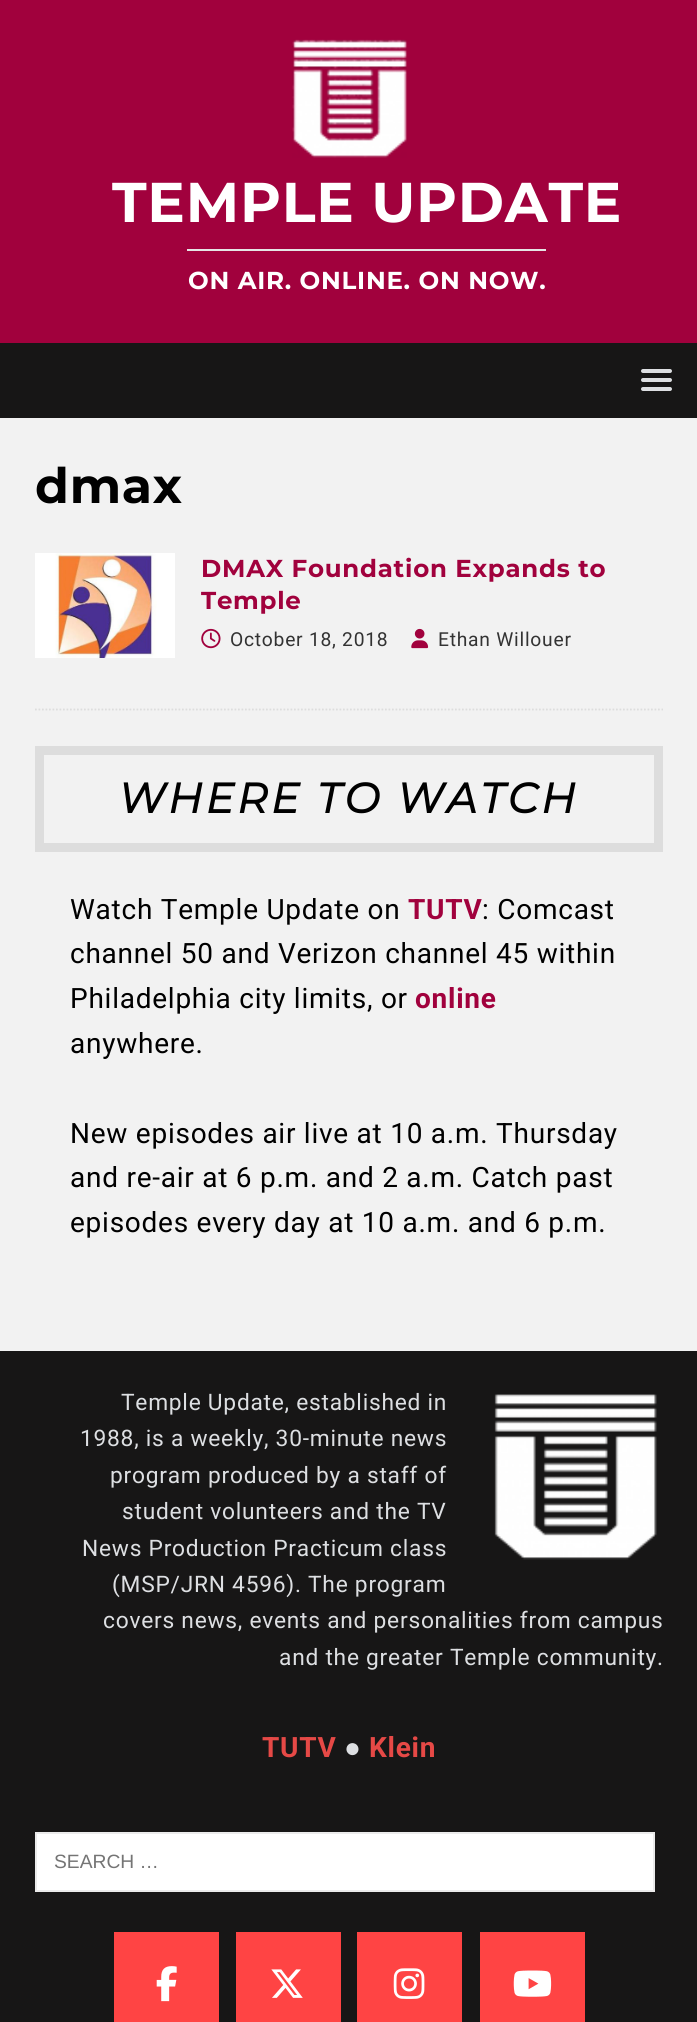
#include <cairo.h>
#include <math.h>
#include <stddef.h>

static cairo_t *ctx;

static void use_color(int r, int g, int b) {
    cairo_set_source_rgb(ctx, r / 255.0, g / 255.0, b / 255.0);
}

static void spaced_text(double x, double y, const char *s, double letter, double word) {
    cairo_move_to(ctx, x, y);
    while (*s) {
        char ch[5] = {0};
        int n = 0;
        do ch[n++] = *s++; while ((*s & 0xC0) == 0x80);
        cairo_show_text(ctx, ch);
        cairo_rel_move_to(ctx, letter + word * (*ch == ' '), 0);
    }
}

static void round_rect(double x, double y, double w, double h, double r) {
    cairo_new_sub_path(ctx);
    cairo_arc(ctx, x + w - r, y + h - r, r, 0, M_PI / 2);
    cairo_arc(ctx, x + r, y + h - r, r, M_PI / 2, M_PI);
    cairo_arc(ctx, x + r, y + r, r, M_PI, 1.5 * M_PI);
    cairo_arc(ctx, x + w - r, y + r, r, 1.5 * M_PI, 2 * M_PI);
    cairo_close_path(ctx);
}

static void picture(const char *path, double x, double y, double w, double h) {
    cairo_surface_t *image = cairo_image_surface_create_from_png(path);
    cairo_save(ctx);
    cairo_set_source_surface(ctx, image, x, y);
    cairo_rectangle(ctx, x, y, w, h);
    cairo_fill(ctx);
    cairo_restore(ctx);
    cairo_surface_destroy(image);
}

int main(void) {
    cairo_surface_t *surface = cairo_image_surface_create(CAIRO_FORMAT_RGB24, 697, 2022);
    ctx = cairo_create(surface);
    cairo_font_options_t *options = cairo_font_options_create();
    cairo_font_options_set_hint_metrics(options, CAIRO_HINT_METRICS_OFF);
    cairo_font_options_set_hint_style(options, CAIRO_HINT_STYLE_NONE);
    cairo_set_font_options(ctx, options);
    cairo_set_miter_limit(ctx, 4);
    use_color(161, 1, 61);
    cairo_paint(ctx);
    picture("img1.png", 292, 39, 115, 119);
    cairo_select_font_face(ctx, "Montserrat", CAIRO_FONT_SLANT_NORMAL, CAIRO_FONT_WEIGHT_BOLD);
    cairo_set_font_size(ctx, 56);
    use_color(255, 255, 255);
    spaced_text(112, 222, "TEMPLE UPDATE", 0.75, 0);
    use_color(229, 229, 229);
    cairo_rectangle(ctx, 187, 249, 359, 2);
    cairo_fill(ctx);
    cairo_set_font_size(ctx, 24.5);
    use_color(255, 255, 255);
    spaced_text(188, 289, "ON AIR. ONLINE. ON NOW.", 0.75, 0);
    use_color(23, 22, 22);
    cairo_rectangle(ctx, 0, 343, 697, 75);
    cairo_fill(ctx);
    use_color(221, 223, 226);
    round_rect(641, 369, 31, 4, 2);
    cairo_fill(ctx);
    round_rect(641, 378, 31, 4, 2);
    cairo_fill(ctx);
    round_rect(641, 387, 31, 4, 2);
    cairo_fill(ctx);
    use_color(242, 242, 242);
    cairo_rectangle(ctx, 0, 418, 697, 933);
    cairo_fill(ctx);
    cairo_set_font_size(ctx, 49);
    use_color(0, 0, 0);
    spaced_text(35, 503, "dmax", 0.75, 0);
    cairo_new_path(ctx);
    cairo_move_to(ctx, 35, 709.5);
    cairo_line_to(ctx, 663, 709.5);
    use_color(221, 221, 221);
    cairo_set_line_width(ctx, 1.8);
    cairo_set_dash(ctx, (double[]){1.75, 1.75}, 2, 0);
    cairo_stroke(ctx);
    picture("img2.png", 35, 553, 140, 105);
    cairo_set_font_size(ctx, 24.5);
    use_color(161, 1, 61);
    spaced_text(201, 577, "DMAX Foundation Expands to", 0.75, 0);
    spaced_text(201, 609, "Temple", 0.75, 0);
    picture("img3.png", 201, 628, 20, 21);
    cairo_select_font_face(ctx, "Roboto", CAIRO_FONT_SLANT_NORMAL, CAIRO_FONT_WEIGHT_NORMAL);
    cairo_set_font_size(ctx, 19.25);
    use_color(51, 51, 51);
    spaced_text(230, 646, "October 18, 2018", 0.75, 0);
    picture("img4.png", 411, 628, 18, 21);
    spaced_text(438, 646, "Ethan Willouer", 0.75, 0);
    cairo_rectangle(ctx, 39.5, 750.5, 619, 97);
    use_color(221, 221, 221);
    cairo_set_line_width(ctx, 9);
    cairo_set_dash(ctx, NULL, 0, 0);
    cairo_stroke(ctx);
    cairo_select_font_face(ctx, "Montserrat", CAIRO_FONT_SLANT_ITALIC, CAIRO_FONT_WEIGHT_BOLD);
    cairo_set_font_size(ctx, 42);
    use_color(0, 0, 0);
    spaced_text(119, 813, "WHERE TO WATCH", 3.4, 0);
    cairo_select_font_face(ctx, "Roboto", CAIRO_FONT_SLANT_NORMAL, CAIRO_FONT_WEIGHT_NORMAL);
    cairo_set_font_size(ctx, 28);
    spaced_text(70, 919, "Watch Temple Update on", 0.75, 0);
    cairo_select_font_face(ctx, "Roboto", CAIRO_FONT_SLANT_NORMAL, CAIRO_FONT_WEIGHT_BOLD);
    use_color(161, 1, 61);
    spaced_text(408, 919, "TUTV", 0.75, 0);
    cairo_select_font_face(ctx, "Roboto", CAIRO_FONT_SLANT_NORMAL, CAIRO_FONT_WEIGHT_NORMAL);
    use_color(0, 0, 0);
    spaced_text(482, 919, ": Comcast", 0.75, 0);
    spaced_text(70, 963, "channel 50 and Verizon channel 45 within", 0.75, 0);
    spaced_text(70, 1008, "Philadelphia city limits, or", 0.75, 0);
    cairo_select_font_face(ctx, "Roboto", CAIRO_FONT_SLANT_NORMAL, CAIRO_FONT_WEIGHT_BOLD);
    use_color(161, 1, 61);
    spaced_text(415, 1008, "online", 0.75, 0);
    cairo_select_font_face(ctx, "Roboto", CAIRO_FONT_SLANT_NORMAL, CAIRO_FONT_WEIGHT_NORMAL);
    use_color(0, 0, 0);
    spaced_text(70, 1053, "anywhere.", 0.75, 0);
    spaced_text(70, 1143, "New episodes air live at 10 a.m. Thursday", 0.75, 0);
    spaced_text(70, 1187, "and re-air at 6 p.m. and 2 a.m. Catch past", 0.75, 0);
    spaced_text(70, 1232, "episodes every day at 10 a.m. and 6 p.m.", 0.75, 0);
    use_color(23, 22, 22);
    cairo_rectangle(ctx, 0, 1351, 697, 671);
    cairo_fill(ctx);
    cairo_set_font_size(ctx, 22.75);
    use_color(221, 223, 226);
    spaced_text(121, 1410, "Temple Update, established in", 0.75, 0);
    spaced_text(80, 1446, "1988, is a weekly, 30-minute news", 0.75, 0);
    spaced_text(110, 1483, "program produced by a staff of", 0.75, 0);
    spaced_text(122, 1519, "student volunteers and the TV", 0.75, 0);
    spaced_text(82, 1556, "News Production Practicum class", 0.75, 0);
    spaced_text(112, 1592, "(MSP/JRN 4596). The program", 0.75, 0);
    spaced_text(103, 1628, "covers news, events and personalities from campus", 0.75, 0);
    spaced_text(279, 1665, "and the greater Temple community.", 0.75, 0);
    picture("img5.png", 494, 1394, 163, 166);
    cairo_select_font_face(ctx, "Roboto", CAIRO_FONT_SLANT_NORMAL, CAIRO_FONT_WEIGHT_BOLD);
    cairo_set_font_size(ctx, 28);
    use_color(230, 73, 70);
    spaced_text(262, 1757, "TUTV", 0.75, 0);
    cairo_select_font_face(ctx, "Liberation Serif", CAIRO_FONT_SLANT_NORMAL, CAIRO_FONT_WEIGHT_BOLD);
    use_color(221, 223, 226);
    spaced_text(344, 1757, "●", 0.75, 0);
    cairo_select_font_face(ctx, "Roboto", CAIRO_FONT_SLANT_NORMAL, CAIRO_FONT_WEIGHT_BOLD);
    use_color(230, 73, 70);
    spaced_text(369, 1757, "Klein", 0.75, 0);
    use_color(255, 255, 255);
    cairo_rectangle(ctx, 36, 1833, 618, 58);
    cairo_fill_preserve(ctx);
    use_color(235, 235, 235);
    cairo_set_line_width(ctx, 2);
    cairo_stroke(ctx);
    cairo_select_font_face(ctx, "Liberation Sans", CAIRO_FONT_SLANT_NORMAL, CAIRO_FONT_WEIGHT_NORMAL);
    cairo_set_font_size(ctx, 19.25);
    use_color(117, 117, 117);
    cairo_move_to(ctx, 54, 1868);
    cairo_show_text(ctx, "SEARCH …");
    use_color(255, 68, 68);
    cairo_rectangle(ctx, 114, 1932, 105, 90);
    cairo_fill(ctx);
    picture("img6.png", 156, 1966, 21, 36);
    cairo_rectangle(ctx, 236, 1932, 105, 90);
    cairo_fill(ctx);
    picture("img7.png", 271, 1969, 32, 29);
    cairo_rectangle(ctx, 357, 1932, 105, 90);
    cairo_fill(ctx);
    picture("img8.png", 393, 1968, 32, 31);
    cairo_rectangle(ctx, 480, 1932, 105, 90);
    cairo_fill(ctx);
    picture("img9.png", 513, 1970, 39, 27);
    cairo_surface_write_to_png(surface, "result.png");
    cairo_font_options_destroy(options);
    cairo_destroy(ctx);
    cairo_surface_destroy(surface);
    return 0;
}
